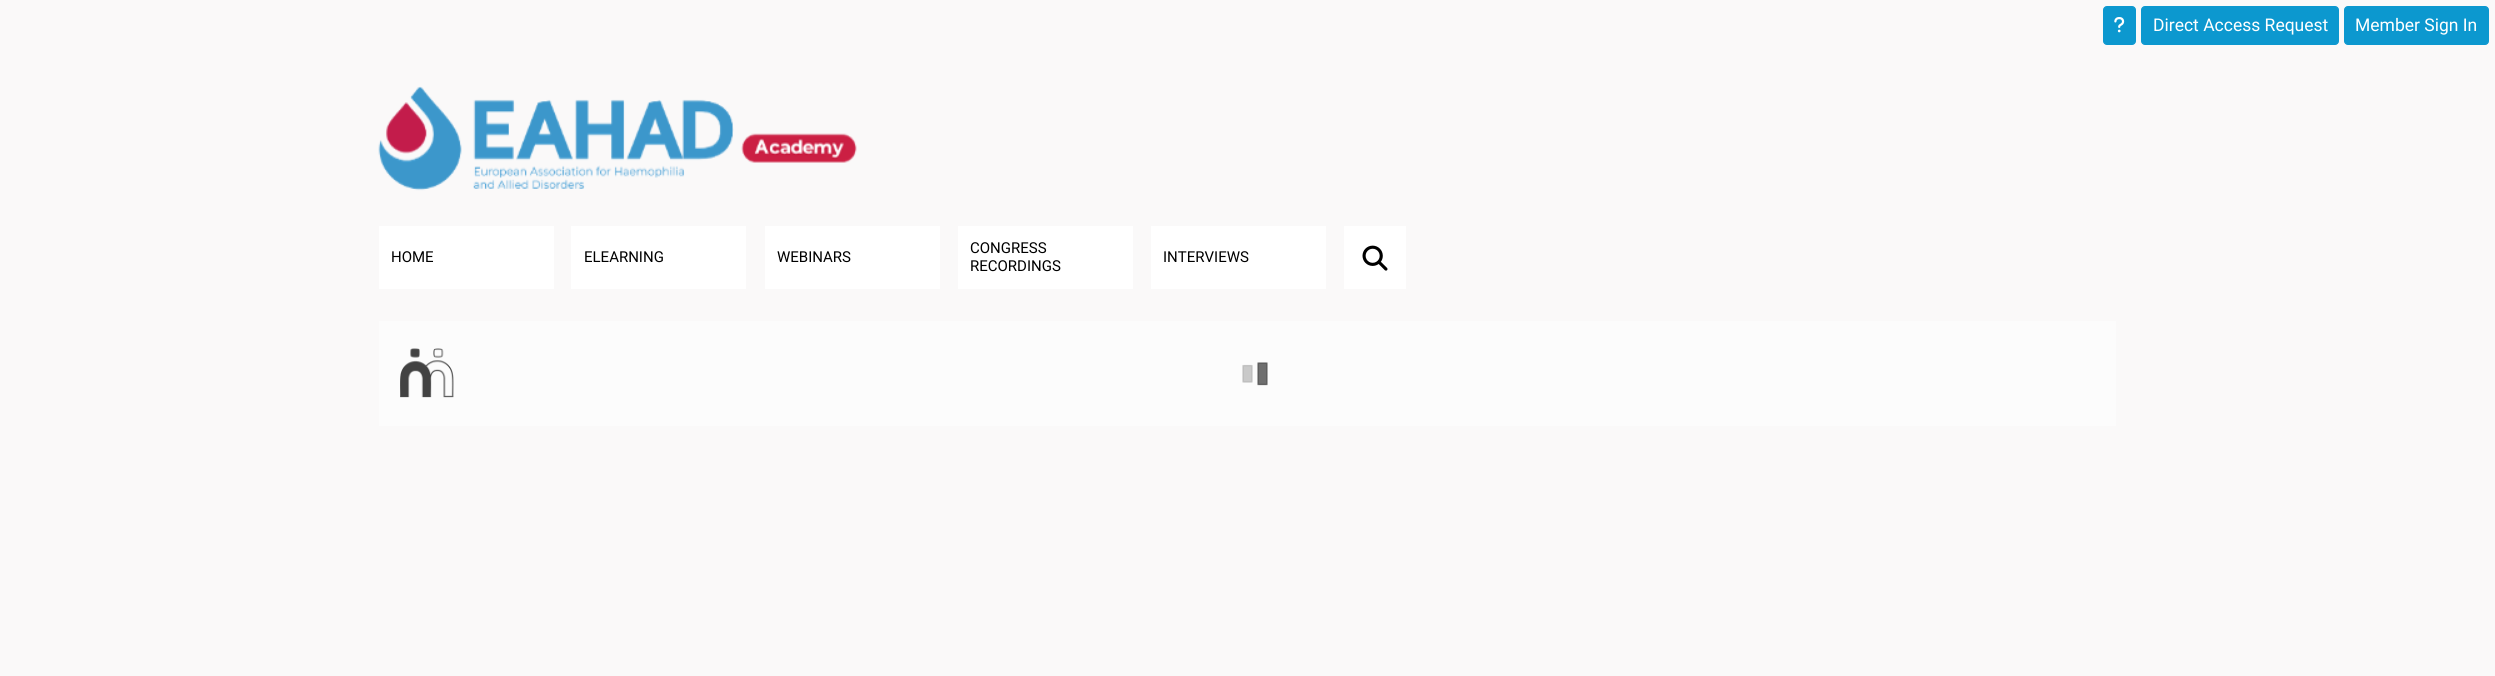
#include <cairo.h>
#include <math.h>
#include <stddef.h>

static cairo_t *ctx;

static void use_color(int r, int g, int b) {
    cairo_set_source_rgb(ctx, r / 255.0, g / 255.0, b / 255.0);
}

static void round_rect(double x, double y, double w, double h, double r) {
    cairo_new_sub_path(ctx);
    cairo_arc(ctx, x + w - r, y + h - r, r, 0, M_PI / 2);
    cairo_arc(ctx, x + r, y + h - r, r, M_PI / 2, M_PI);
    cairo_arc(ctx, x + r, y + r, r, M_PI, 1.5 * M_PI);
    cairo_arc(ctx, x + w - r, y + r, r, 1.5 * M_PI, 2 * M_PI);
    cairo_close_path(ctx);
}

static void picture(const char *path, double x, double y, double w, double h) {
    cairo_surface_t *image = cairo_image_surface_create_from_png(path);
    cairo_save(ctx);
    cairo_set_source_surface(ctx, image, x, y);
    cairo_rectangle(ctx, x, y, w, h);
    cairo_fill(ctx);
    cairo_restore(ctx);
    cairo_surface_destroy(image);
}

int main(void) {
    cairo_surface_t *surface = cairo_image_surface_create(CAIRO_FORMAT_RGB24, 2495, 676);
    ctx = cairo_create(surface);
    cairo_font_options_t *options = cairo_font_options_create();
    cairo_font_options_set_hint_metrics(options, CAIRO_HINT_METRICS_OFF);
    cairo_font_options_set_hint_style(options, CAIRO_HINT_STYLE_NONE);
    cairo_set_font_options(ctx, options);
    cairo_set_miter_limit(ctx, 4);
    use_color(250, 249, 249);
    cairo_paint(ctx);
    use_color(12, 152, 207);
    round_rect(2103.5, 6.5, 32, 38, 3.5);
    cairo_fill_preserve(ctx);
    cairo_set_line_width(ctx, 1);
    cairo_stroke(ctx);
    picture("img1.png", 2114, 17, 11, 16);
    round_rect(2141.5, 6.5, 197, 38, 3.5);
    cairo_fill_preserve(ctx);
    cairo_stroke(ctx);
    cairo_select_font_face(ctx, "Roboto", CAIRO_FONT_SLANT_NORMAL, CAIRO_FONT_WEIGHT_NORMAL);
    cairo_set_font_size(ctx, 17.5);
    use_color(255, 255, 255);
    cairo_move_to(ctx, 2153, 31);
    cairo_show_text(ctx, "Direct Access Request");
    use_color(12, 152, 207);
    round_rect(2344.5, 6.5, 144, 38, 3.5);
    cairo_fill_preserve(ctx);
    cairo_stroke(ctx);
    use_color(255, 255, 255);
    cairo_move_to(ctx, 2355, 31);
    cairo_show_text(ctx, "Member Sign In");
    picture("img2.png", 378, 86, 479, 105);
    cairo_rectangle(ctx, 379, 226, 175, 63);
    cairo_fill(ctx);
    cairo_set_font_size(ctx, 15);
    use_color(0, 0, 0);
    cairo_move_to(ctx, 391, 262);
    cairo_show_text(ctx, "HOME");
    use_color(255, 255, 255);
    cairo_rectangle(ctx, 571, 226, 175, 63);
    cairo_fill(ctx);
    use_color(0, 0, 0);
    cairo_move_to(ctx, 584, 262);
    cairo_show_text(ctx, "ELEARNING");
    use_color(255, 255, 255);
    cairo_rectangle(ctx, 765, 226, 175, 63);
    cairo_fill(ctx);
    use_color(0, 0, 0);
    cairo_move_to(ctx, 777, 262);
    cairo_show_text(ctx, "WEBINARS");
    use_color(255, 255, 255);
    cairo_rectangle(ctx, 958, 226, 175, 63);
    cairo_fill(ctx);
    use_color(0, 0, 0);
    cairo_move_to(ctx, 970, 253);
    cairo_show_text(ctx, "CONGRESS");
    cairo_move_to(ctx, 970, 271);
    cairo_show_text(ctx, "RECORDINGS");
    use_color(255, 255, 255);
    cairo_rectangle(ctx, 1151, 226, 175, 63);
    cairo_fill(ctx);
    use_color(0, 0, 0);
    cairo_move_to(ctx, 1163, 262);
    cairo_show_text(ctx, "INTERVIEWS");
    use_color(255, 255, 255);
    cairo_rectangle(ctx, 1344, 226, 62, 63);
    cairo_fill(ctx);
    picture("img3.png", 1362, 245, 26, 26);
    use_color(252, 252, 252);
    cairo_rectangle(ctx, 379, 321, 1737, 105);
    cairo_fill(ctx);
    picture("img4.png", 400, 348, 54, 50);
    picture("img5.png", 1242, 362, 26, 24);
    cairo_surface_write_to_png(surface, "result.png");
    cairo_font_options_destroy(options);
    cairo_destroy(ctx);
    cairo_surface_destroy(surface);
    return 0;
}
